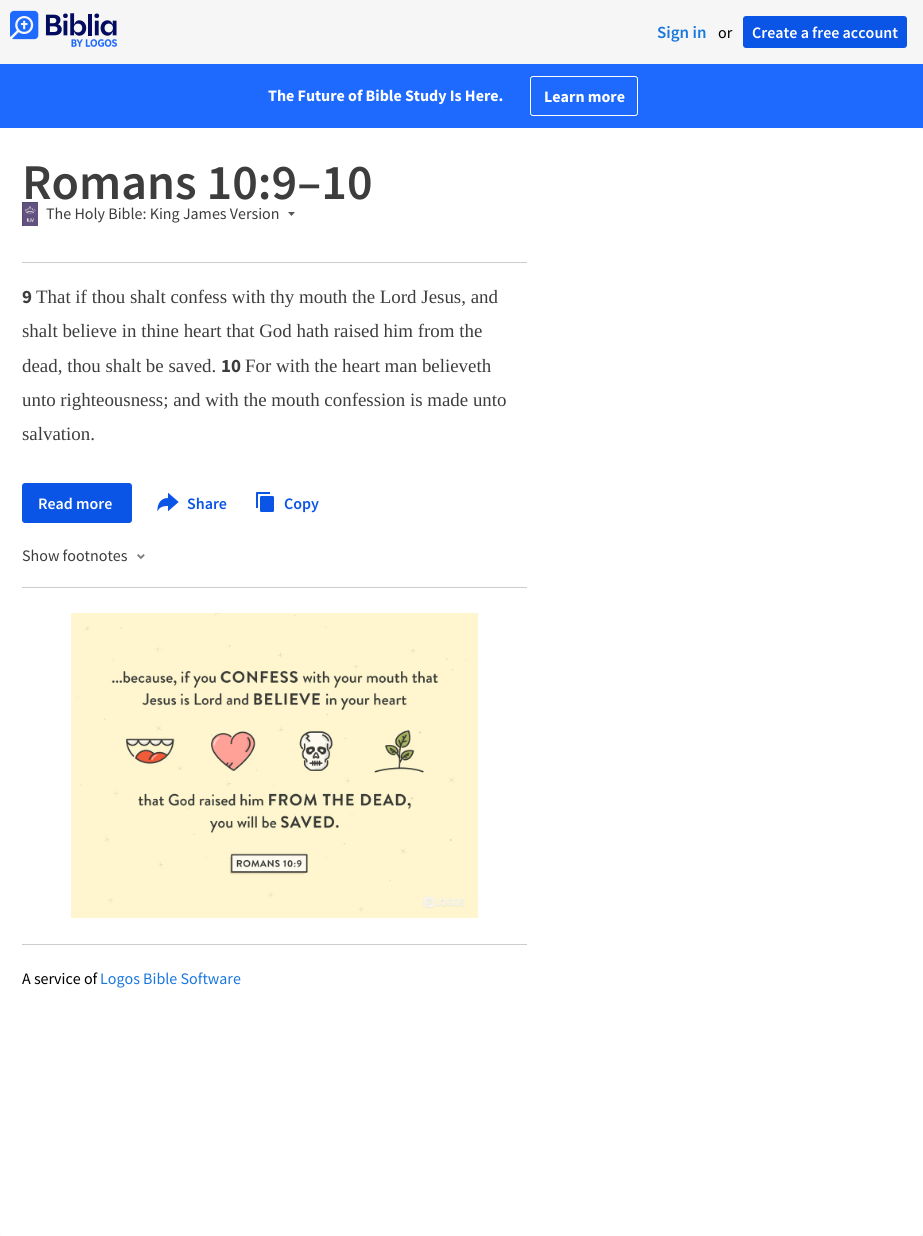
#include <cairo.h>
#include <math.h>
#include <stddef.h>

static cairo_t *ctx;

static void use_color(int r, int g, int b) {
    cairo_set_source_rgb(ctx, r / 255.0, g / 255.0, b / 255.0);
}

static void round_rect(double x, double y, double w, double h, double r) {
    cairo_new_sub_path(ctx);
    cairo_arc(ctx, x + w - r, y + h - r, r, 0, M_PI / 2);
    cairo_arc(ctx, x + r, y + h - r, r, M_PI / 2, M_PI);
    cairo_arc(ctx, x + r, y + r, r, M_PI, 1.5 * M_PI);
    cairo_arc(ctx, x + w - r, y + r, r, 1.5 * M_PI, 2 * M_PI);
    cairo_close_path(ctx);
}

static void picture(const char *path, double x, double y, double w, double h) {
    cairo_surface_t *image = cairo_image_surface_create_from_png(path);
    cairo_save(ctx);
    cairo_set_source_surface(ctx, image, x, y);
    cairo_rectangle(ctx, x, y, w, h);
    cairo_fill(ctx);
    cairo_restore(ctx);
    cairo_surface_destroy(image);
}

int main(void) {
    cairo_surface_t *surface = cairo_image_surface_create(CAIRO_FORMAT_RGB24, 923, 1236);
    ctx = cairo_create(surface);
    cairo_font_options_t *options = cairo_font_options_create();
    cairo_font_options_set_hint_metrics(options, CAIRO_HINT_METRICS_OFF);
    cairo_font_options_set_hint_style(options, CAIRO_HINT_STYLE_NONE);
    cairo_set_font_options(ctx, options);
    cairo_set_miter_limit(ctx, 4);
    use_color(246, 246, 246);
    cairo_paint(ctx);
    picture("img1.png", 10, 10, 107, 37);
    cairo_select_font_face(ctx, "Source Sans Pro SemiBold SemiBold", CAIRO_FONT_SLANT_NORMAL, CAIRO_FONT_WEIGHT_NORMAL);
    cairo_set_font_size(ctx, 17);
    use_color(25, 119, 222);
    cairo_move_to(ctx, 657, 38);
    cairo_show_text(ctx, "Sign in");
    cairo_select_font_face(ctx, "Source Sans Pro", CAIRO_FONT_SLANT_NORMAL, CAIRO_FONT_WEIGHT_NORMAL);
    cairo_set_font_size(ctx, 16);
    use_color(0, 0, 0);
    cairo_move_to(ctx, 718, 38);
    cairo_show_text(ctx, "or");
    use_color(10, 85, 230);
    round_rect(743, 16, 164, 32, 3);
    cairo_fill(ctx);
    cairo_select_font_face(ctx, "Source Sans Pro SemiBold SemiBold", CAIRO_FONT_SLANT_NORMAL, CAIRO_FONT_WEIGHT_NORMAL);
    use_color(255, 255, 255);
    cairo_move_to(ctx, 752, 38);
    cairo_show_text(ctx, "Create a free account");
    use_color(30, 106, 254);
    cairo_rectangle(ctx, 0, 64, 923, 64);
    cairo_fill(ctx);
    cairo_select_font_face(ctx, "Source Sans Pro", CAIRO_FONT_SLANT_NORMAL, CAIRO_FONT_WEIGHT_BOLD);
    use_color(255, 255, 255);
    cairo_move_to(ctx, 268, 101);
    cairo_show_text(ctx, "The Future of Bible Study Is Here.");
    round_rect(530.5, 76.5, 107, 39, 2.5);
    cairo_set_line_width(ctx, 1);
    cairo_stroke(ctx);
    cairo_move_to(ctx, 544, 102);
    cairo_show_text(ctx, "Learn more");
    round_rect(-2, 128, 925, 1108, 4);
    cairo_fill(ctx);
    use_color(204, 204, 204);
    cairo_rectangle(ctx, 22, 262, 505, 1);
    cairo_fill(ctx);
    cairo_select_font_face(ctx, "Source Sans Pro SemiBold SemiBold", CAIRO_FONT_SLANT_NORMAL, CAIRO_FONT_WEIGHT_NORMAL);
    cairo_set_font_size(ctx, 50);
    use_color(61, 61, 61);
    cairo_move_to(ctx, 22, 199);
    cairo_show_text(ctx, "Romans 10:9–10");
    picture("img2.png", 22, 202, 16, 24);
    cairo_select_font_face(ctx, "Source Sans Pro", CAIRO_FONT_SLANT_NORMAL, CAIRO_FONT_WEIGHT_NORMAL);
    cairo_set_font_size(ctx, 16);
    cairo_move_to(ctx, 46, 219);
    cairo_show_text(ctx, "The Holy Bible: King James Version");
    use_color(88, 88, 88);
    cairo_set_fill_rule(ctx, CAIRO_FILL_RULE_EVEN_ODD);
    cairo_new_path(ctx);
    cairo_move_to(ctx, 291.5, 216);
    cairo_line_to(ctx, 295, 212);
    cairo_line_to(ctx, 288, 212);
    cairo_close_path(ctx);
    cairo_fill(ctx);
    cairo_select_font_face(ctx, "Source Sans Pro", CAIRO_FONT_SLANT_NORMAL, CAIRO_FONT_WEIGHT_BOLD);
    cairo_set_font_size(ctx, 18.9);
    use_color(61, 61, 61);
    cairo_move_to(ctx, 22, 303);
    cairo_show_text(ctx, "9");
    cairo_select_font_face(ctx, "Liberation Serif", CAIRO_FONT_SLANT_NORMAL, CAIRO_FONT_WEIGHT_NORMAL);
    cairo_move_to(ctx, 36, 303);
    cairo_show_text(ctx, "That if thou shalt confess with thy mouth the Lord Jesus, and");
    cairo_move_to(ctx, 22, 337);
    cairo_show_text(ctx, "shalt believe in thine heart that God hath raised him from the");
    cairo_move_to(ctx, 22, 372);
    cairo_show_text(ctx, "dead, thou shalt be saved.");
    cairo_select_font_face(ctx, "Source Sans Pro", CAIRO_FONT_SLANT_NORMAL, CAIRO_FONT_WEIGHT_BOLD);
    cairo_move_to(ctx, 221, 372);
    cairo_show_text(ctx, "10");
    cairo_select_font_face(ctx, "Liberation Serif", CAIRO_FONT_SLANT_NORMAL, CAIRO_FONT_WEIGHT_NORMAL);
    cairo_move_to(ctx, 245, 372);
    cairo_show_text(ctx, "For with the heart man believeth");
    cairo_move_to(ctx, 22, 406);
    cairo_show_text(ctx, "unto righteousness; and with the mouth confession is made unto");
    cairo_move_to(ctx, 22, 440);
    cairo_show_text(ctx, "salvation.");
    use_color(10, 85, 230);
    round_rect(22, 483, 110, 40, 3);
    cairo_fill(ctx);
    cairo_select_font_face(ctx, "Source Sans Pro SemiBold SemiBold", CAIRO_FONT_SLANT_NORMAL, CAIRO_FONT_WEIGHT_NORMAL);
    cairo_set_font_size(ctx, 16);
    use_color(255, 255, 255);
    cairo_move_to(ctx, 38, 509);
    cairo_show_text(ctx, "Read more");
    picture("img3.png", 157, 492, 22, 20);
    use_color(10, 85, 230);
    cairo_move_to(ctx, 187, 509);
    cairo_show_text(ctx, "Share");
    picture("img4.png", 256, 492, 18, 20);
    cairo_move_to(ctx, 284, 509);
    cairo_show_text(ctx, "Copy");
    cairo_select_font_face(ctx, "Source Sans Pro", CAIRO_FONT_SLANT_NORMAL, CAIRO_FONT_WEIGHT_NORMAL);
    use_color(61, 61, 61);
    cairo_move_to(ctx, 22, 561);
    cairo_show_text(ctx, "Show footnotes");
    picture("img5.png", 137, 554, 8, 6);
    use_color(204, 204, 204);
    cairo_rectangle(ctx, 22, 587, 505, 1);
    cairo_fill(ctx);
    picture("img6.png", 71, 613, 407, 305);
    cairo_rectangle(ctx, 22, 944, 505, 1);
    cairo_fill(ctx);
    use_color(0, 0, 0);
    cairo_move_to(ctx, 22, 984);
    cairo_show_text(ctx, "A service of");
    use_color(25, 119, 222);
    cairo_move_to(ctx, 100, 984);
    cairo_show_text(ctx, "Logos Bible Software");
    cairo_surface_write_to_png(surface, "result.png");
    cairo_font_options_destroy(options);
    cairo_destroy(ctx);
    cairo_surface_destroy(surface);
    return 0;
}
